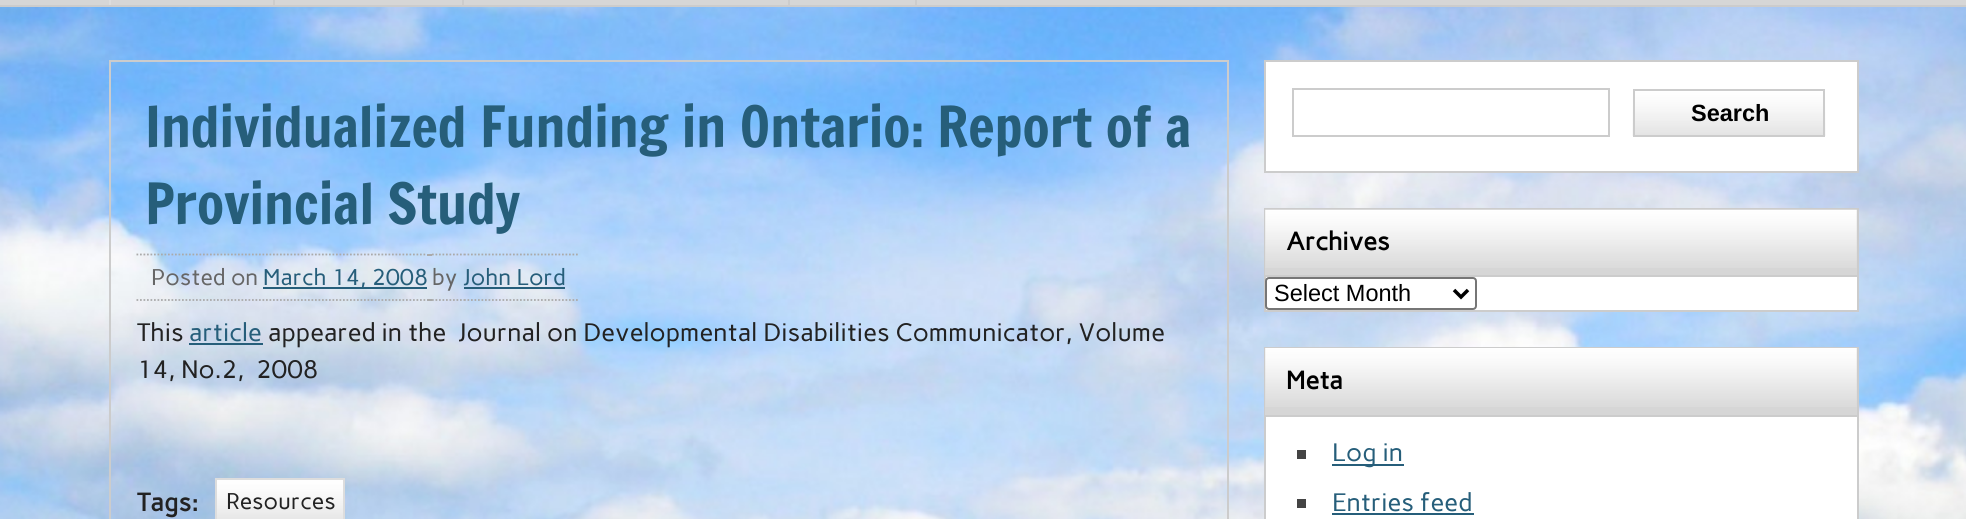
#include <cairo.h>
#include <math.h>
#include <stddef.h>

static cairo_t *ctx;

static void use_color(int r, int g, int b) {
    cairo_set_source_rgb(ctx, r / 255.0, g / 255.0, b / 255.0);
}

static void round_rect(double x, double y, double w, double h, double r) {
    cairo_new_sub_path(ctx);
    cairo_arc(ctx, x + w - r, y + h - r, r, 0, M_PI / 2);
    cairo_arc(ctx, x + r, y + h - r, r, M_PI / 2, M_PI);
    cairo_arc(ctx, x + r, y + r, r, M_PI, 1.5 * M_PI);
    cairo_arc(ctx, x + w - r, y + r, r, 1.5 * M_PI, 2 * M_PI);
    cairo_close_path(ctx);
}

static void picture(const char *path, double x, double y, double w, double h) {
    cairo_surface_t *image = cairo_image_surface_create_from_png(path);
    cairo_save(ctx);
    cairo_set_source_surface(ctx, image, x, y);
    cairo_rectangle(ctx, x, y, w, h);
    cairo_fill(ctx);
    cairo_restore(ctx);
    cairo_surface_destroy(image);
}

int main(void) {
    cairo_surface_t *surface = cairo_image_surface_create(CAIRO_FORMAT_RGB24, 1966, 519);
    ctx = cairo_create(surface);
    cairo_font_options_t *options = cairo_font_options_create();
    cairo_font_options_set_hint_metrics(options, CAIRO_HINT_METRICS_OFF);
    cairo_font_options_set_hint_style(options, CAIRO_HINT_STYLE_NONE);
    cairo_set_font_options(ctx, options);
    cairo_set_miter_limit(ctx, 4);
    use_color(255, 255, 255);
    cairo_paint(ctx);
    picture("img1.png", 0, 7, 1966, 512);
    use_color(214, 214, 214);
    cairo_rectangle(ctx, 0, 0, 1966, 5);
    cairo_fill(ctx);
    use_color(204, 204, 204);
    cairo_rectangle(ctx, 0, 5, 1966, 2);
    cairo_fill(ctx);
    use_color(221, 221, 221);
    cairo_rectangle(ctx, 109, 0, 2, 5);
    cairo_fill(ctx);
    use_color(204, 204, 204);
    cairo_rectangle(ctx, 273, 0, 2, 5);
    cairo_fill(ctx);
    cairo_rectangle(ctx, 462, 0, 2, 5);
    cairo_fill(ctx);
    cairo_rectangle(ctx, 788, 0, 2, 5);
    cairo_fill(ctx);
    cairo_rectangle(ctx, 915, 0, 2, 5);
    cairo_fill(ctx);
    cairo_rectangle(ctx, 110, 61, 1118, 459);
    cairo_stroke(ctx);
    cairo_select_font_face(ctx, "Francois One", CAIRO_FONT_SLANT_NORMAL, CAIRO_FONT_WEIGHT_NORMAL);
    cairo_set_font_size(ctx, 55.5);
    use_color(38, 94, 122);
    cairo_move_to(ctx, 145, 147);
    cairo_show_text(ctx, "Individualized Funding in Ontario:");
    cairo_move_to(ctx, 937, 147);
    cairo_show_text(ctx, "Report of a");
    cairo_move_to(ctx, 145, 224);
    cairo_show_text(ctx, "Provincial Study");
    cairo_select_font_face(ctx, "Carme", CAIRO_FONT_SLANT_NORMAL, CAIRO_FONT_WEIGHT_NORMAL);
    cairo_set_font_size(ctx, 22.75);
    use_color(102, 102, 102);
    cairo_move_to(ctx, 151, 285);
    cairo_show_text(ctx, "Posted on");
    cairo_new_path(ctx);
    cairo_move_to(ctx, 136.5, 254.5);
    cairo_line_to(ctx, 262.5, 254.5);
    use_color(170, 170, 170);
    cairo_set_line_width(ctx, 1.8);
    cairo_set_dash(ctx, (double[]){1.75, 1.75}, 2, 0);
    cairo_stroke(ctx);
    cairo_new_path(ctx);
    cairo_move_to(ctx, 136.5, 300);
    cairo_line_to(ctx, 262.5, 300);
    cairo_stroke(ctx);
    use_color(38, 94, 122);
    cairo_rectangle(ctx, 263, 287, 164, 2);
    cairo_fill(ctx);
    cairo_move_to(ctx, 263, 285);
    cairo_show_text(ctx, "March 14, 2008");
    cairo_new_path(ctx);
    cairo_move_to(ctx, 262.5, 254.5);
    cairo_line_to(ctx, 427, 254.5);
    use_color(170, 170, 170);
    cairo_stroke(ctx);
    cairo_new_path(ctx);
    cairo_move_to(ctx, 262.5, 300);
    cairo_line_to(ctx, 427, 300);
    cairo_stroke(ctx);
    cairo_rectangle(ctx, 427, 254, 5, 2);
    cairo_fill(ctx);
    cairo_new_path(ctx);
    cairo_move_to(ctx, 432, 254.5);
    cairo_line_to(ctx, 464, 254.5);
    cairo_move_to(ctx, 432, 300);
    cairo_line_to(ctx, 464, 300);
    cairo_stroke(ctx);
    use_color(102, 102, 102);
    cairo_move_to(ctx, 432, 285);
    cairo_show_text(ctx, "by");
    use_color(170, 170, 170);
    cairo_rectangle(ctx, 427, 299, 5, 2);
    cairo_fill(ctx);
    use_color(38, 94, 122);
    cairo_move_to(ctx, 463, 285);
    cairo_show_text(ctx, "John Lord");
    cairo_new_path(ctx);
    cairo_move_to(ctx, 464, 254.5);
    cairo_line_to(ctx, 579, 254.5);
    use_color(170, 170, 170);
    cairo_stroke(ctx);
    cairo_new_path(ctx);
    cairo_move_to(ctx, 464, 300);
    cairo_line_to(ctx, 579, 300);
    cairo_stroke(ctx);
    use_color(38, 94, 122);
    cairo_rectangle(ctx, 464, 287, 101, 2);
    cairo_fill(ctx);
    cairo_set_font_size(ctx, 25.2);
    use_color(34, 34, 34);
    cairo_move_to(ctx, 137, 341);
    cairo_show_text(ctx, "This");
    use_color(38, 94, 122);
    cairo_move_to(ctx, 189, 341);
    cairo_show_text(ctx, "article");
    cairo_rectangle(ctx, 189, 343, 74, 2);
    cairo_fill(ctx);
    use_color(34, 34, 34);
    cairo_move_to(ctx, 268, 341);
    cairo_show_text(ctx, "appeared in the  Journal on Developmental Disabilities Communicator, Volume");
    cairo_move_to(ctx, 137, 378);
    cairo_show_text(ctx, "14, No.2,  2008");
    cairo_select_font_face(ctx, "Carme", CAIRO_FONT_SLANT_NORMAL, CAIRO_FONT_WEIGHT_BOLD);
    cairo_move_to(ctx, 137, 511);
    cairo_show_text(ctx, "Tags:");
    picture("img2.png", 217, 480, 126, 39);
    cairo_rectangle(ctx, 216, 479, 128, 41);
    use_color(221, 221, 221);
    cairo_set_line_width(ctx, 2);
    cairo_set_dash(ctx, NULL, 0, 0);
    cairo_stroke(ctx);
    cairo_select_font_face(ctx, "Carme", CAIRO_FONT_SLANT_NORMAL, CAIRO_FONT_WEIGHT_NORMAL);
    cairo_set_font_size(ctx, 22.75);
    use_color(34, 34, 34);
    cairo_move_to(ctx, 226, 509);
    cairo_show_text(ctx, "Resources");
    use_color(255, 255, 255);
    cairo_rectangle(ctx, 1265, 61, 593, 111);
    cairo_fill_preserve(ctx);
    use_color(204, 204, 204);
    cairo_stroke(ctx);
    cairo_rectangle(ctx, 1293, 89, 316, 47);
    cairo_stroke(ctx);
    picture("img3.png", 1632, 90, 194, 46);
    cairo_rectangle(ctx, 1634, 90, 190, 46);
    cairo_stroke(ctx);
    cairo_select_font_face(ctx, "Liberation Sans", CAIRO_FONT_SLANT_NORMAL, CAIRO_FONT_WEIGHT_BOLD);
    cairo_set_font_size(ctx, 23.5);
    use_color(0, 0, 0);
    cairo_move_to(ctx, 1691, 121);
    cairo_show_text(ctx, "Search");
    use_color(255, 255, 255);
    cairo_rectangle(ctx, 1266, 277, 591, 33);
    cairo_fill(ctx);
    cairo_rectangle(ctx, 1265, 209, 593, 102);
    use_color(204, 204, 204);
    cairo_stroke(ctx);
    use_color(214, 214, 214);
    cairo_rectangle(ctx, 1265, 210, 592, 65);
    cairo_fill(ctx);
    picture("img4.png", 1265, 209, 592, 59);
    use_color(204, 204, 204);
    cairo_rectangle(ctx, 1265, 275, 592, 2);
    cairo_fill(ctx);
    cairo_select_font_face(ctx, "Carme", CAIRO_FONT_SLANT_NORMAL, CAIRO_FONT_WEIGHT_BOLD);
    cairo_set_font_size(ctx, 25.2);
    use_color(0, 0, 0);
    cairo_move_to(ctx, 1286, 250);
    cairo_show_text(ctx, "Archives");
    use_color(255, 255, 255);
    round_rect(1266, 278, 210, 31, 3);
    cairo_fill_preserve(ctx);
    use_color(118, 118, 118);
    cairo_stroke(ctx);
    cairo_new_path(ctx);
    cairo_move_to(ctx, 1454, 290);
    cairo_line_to(ctx, 1461, 297);
    cairo_line_to(ctx, 1468, 290);
    use_color(0, 0, 0);
    cairo_set_line_width(ctx, 3.5);
    cairo_stroke(ctx);
    cairo_select_font_face(ctx, "Liberation Sans", CAIRO_FONT_SLANT_NORMAL, CAIRO_FONT_WEIGHT_NORMAL);
    cairo_set_font_size(ctx, 23.5);
    cairo_move_to(ctx, 1274, 301);
    cairo_show_text(ctx, "Select Month");
    use_color(255, 255, 255);
    cairo_rectangle(ctx, 1266, 417, 591, 102);
    cairo_fill(ctx);
    cairo_rectangle(ctx, 1265, 348, 593, 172);
    use_color(204, 204, 204);
    cairo_set_line_width(ctx, 2);
    cairo_stroke(ctx);
    use_color(214, 214, 214);
    cairo_rectangle(ctx, 1265, 348, 592, 67);
    cairo_fill(ctx);
    picture("img5.png", 1265, 348, 592, 59);
    use_color(204, 204, 204);
    cairo_rectangle(ctx, 1265, 415, 592, 2);
    cairo_fill(ctx);
    cairo_select_font_face(ctx, "Carme", CAIRO_FONT_SLANT_NORMAL, CAIRO_FONT_WEIGHT_BOLD);
    cairo_set_font_size(ctx, 25.2);
    use_color(0, 0, 0);
    cairo_move_to(ctx, 1286, 389);
    cairo_show_text(ctx, "Meta");
    use_color(68, 68, 68);
    cairo_rectangle(ctx, 1297, 450, 9, 9);
    cairo_fill(ctx);
    use_color(38, 94, 122);
    cairo_rectangle(ctx, 1332, 464, 72, 2);
    cairo_fill(ctx);
    cairo_select_font_face(ctx, "Carme", CAIRO_FONT_SLANT_NORMAL, CAIRO_FONT_WEIGHT_NORMAL);
    cairo_move_to(ctx, 1332, 461);
    cairo_show_text(ctx, "Log in");
    use_color(68, 68, 68);
    cairo_rectangle(ctx, 1297, 499, 9, 9);
    cairo_fill(ctx);
    use_color(38, 94, 122);
    cairo_move_to(ctx, 1332, 511);
    cairo_show_text(ctx, "Entries feed");
    cairo_rectangle(ctx, 1332, 513, 142, 2);
    cairo_fill(ctx);
    cairo_surface_write_to_png(surface, "result.png");
    cairo_font_options_destroy(options);
    cairo_destroy(ctx);
    cairo_surface_destroy(surface);
    return 0;
}
